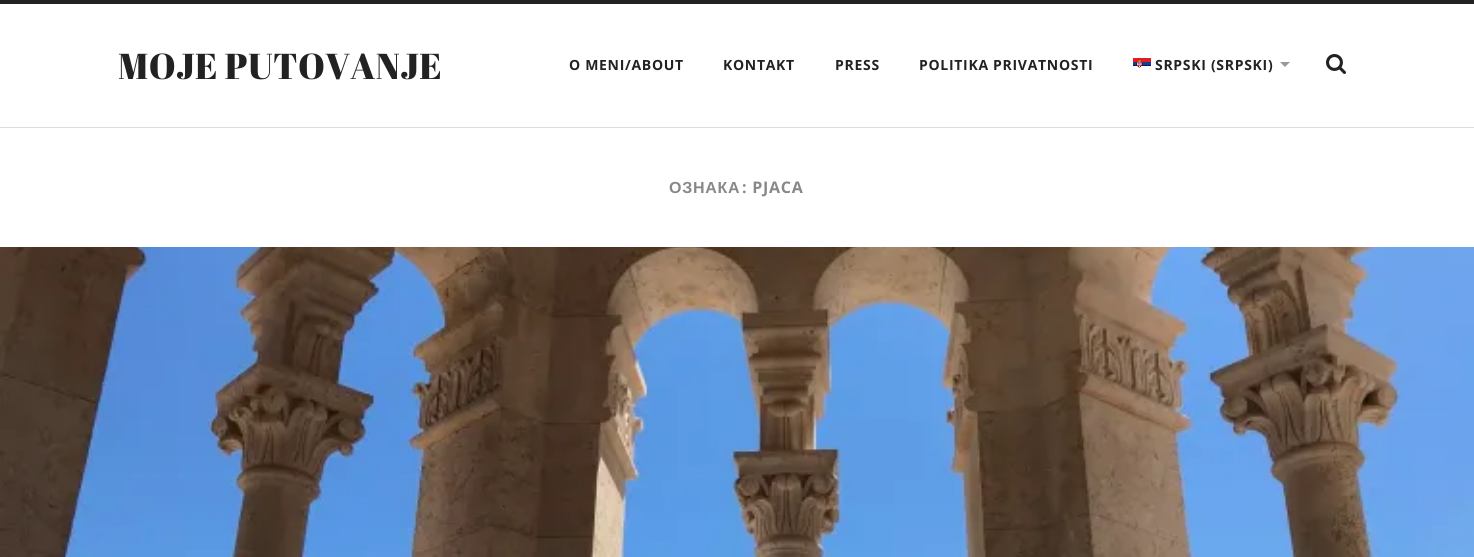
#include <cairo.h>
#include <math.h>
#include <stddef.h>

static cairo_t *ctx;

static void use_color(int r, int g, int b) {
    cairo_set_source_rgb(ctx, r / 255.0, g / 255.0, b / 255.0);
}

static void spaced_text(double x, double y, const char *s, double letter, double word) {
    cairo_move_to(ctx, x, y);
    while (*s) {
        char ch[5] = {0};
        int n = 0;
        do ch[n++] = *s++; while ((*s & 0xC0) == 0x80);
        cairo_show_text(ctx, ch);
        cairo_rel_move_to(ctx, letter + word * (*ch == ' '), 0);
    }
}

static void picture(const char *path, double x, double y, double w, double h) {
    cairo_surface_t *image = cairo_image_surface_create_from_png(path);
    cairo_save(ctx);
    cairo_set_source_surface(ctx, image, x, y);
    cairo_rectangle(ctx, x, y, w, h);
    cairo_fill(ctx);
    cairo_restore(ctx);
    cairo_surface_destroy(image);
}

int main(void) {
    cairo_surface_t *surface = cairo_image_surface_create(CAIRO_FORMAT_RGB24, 1474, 557);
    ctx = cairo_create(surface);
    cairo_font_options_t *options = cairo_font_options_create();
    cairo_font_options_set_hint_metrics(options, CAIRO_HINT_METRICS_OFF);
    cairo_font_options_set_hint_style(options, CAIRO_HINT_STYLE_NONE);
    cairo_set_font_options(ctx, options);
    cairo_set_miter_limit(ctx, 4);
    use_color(255, 255, 255);
    cairo_paint(ctx);
    use_color(34, 34, 34);
    cairo_rectangle(ctx, 0, 0, 1474, 4);
    cairo_fill(ctx);
    cairo_select_font_face(ctx, "Abril Fatface", CAIRO_FONT_SLANT_NORMAL, CAIRO_FONT_WEIGHT_NORMAL);
    cairo_set_font_size(ctx, 36);
    spaced_text(118, 79, "MOJE PUTOVANJE", 0.4, 0);
    cairo_select_font_face(ctx, "Open Sans", CAIRO_FONT_SLANT_NORMAL, CAIRO_FONT_WEIGHT_BOLD);
    cairo_set_font_size(ctx, 14);
    spaced_text(569, 70, "O MENI/ABOUT", 0.7, 0);
    spaced_text(723, 70, "KONTAKT", 0.7, 0);
    spaced_text(835, 70, "PRESS", 0.7, 0);
    spaced_text(919, 70, "POLITIKA PRIVATNOSTI", 0.7, 0);
    picture("img1.png", 1133, 58, 18, 10);
    spaced_text(1155, 70, "SRPSKI (SRPSKI)", 0.7, 0);
    use_color(153, 153, 153);
    cairo_new_path(ctx);
    cairo_move_to(ctx, 1280, 62);
    cairo_line_to(ctx, 1290, 62);
    cairo_line_to(ctx, 1285, 67);
    cairo_close_path(ctx);
    cairo_fill(ctx);
    picture("img2.png", 1326, 54, 20, 20);
    use_color(221, 221, 221);
    cairo_rectangle(ctx, 0, 127, 1474, 1);
    cairo_fill(ctx);
    cairo_select_font_face(ctx, "Liberation Sans", CAIRO_FONT_SLANT_NORMAL, CAIRO_FONT_WEIGHT_BOLD);
    cairo_set_font_size(ctx, 16);
    use_color(136, 136, 136);
    spaced_text(669, 193, "ОЗНАКА", 0.75, 0);
    cairo_select_font_face(ctx, "Open Sans", CAIRO_FONT_SLANT_NORMAL, CAIRO_FONT_WEIGHT_BOLD);
    spaced_text(742, 193, ": PJACA", 0.75, 0);
    picture("img3.png", 0, 247, 1474, 310);
    cairo_surface_write_to_png(surface, "result.png");
    cairo_font_options_destroy(options);
    cairo_destroy(ctx);
    cairo_surface_destroy(surface);
    return 0;
}
